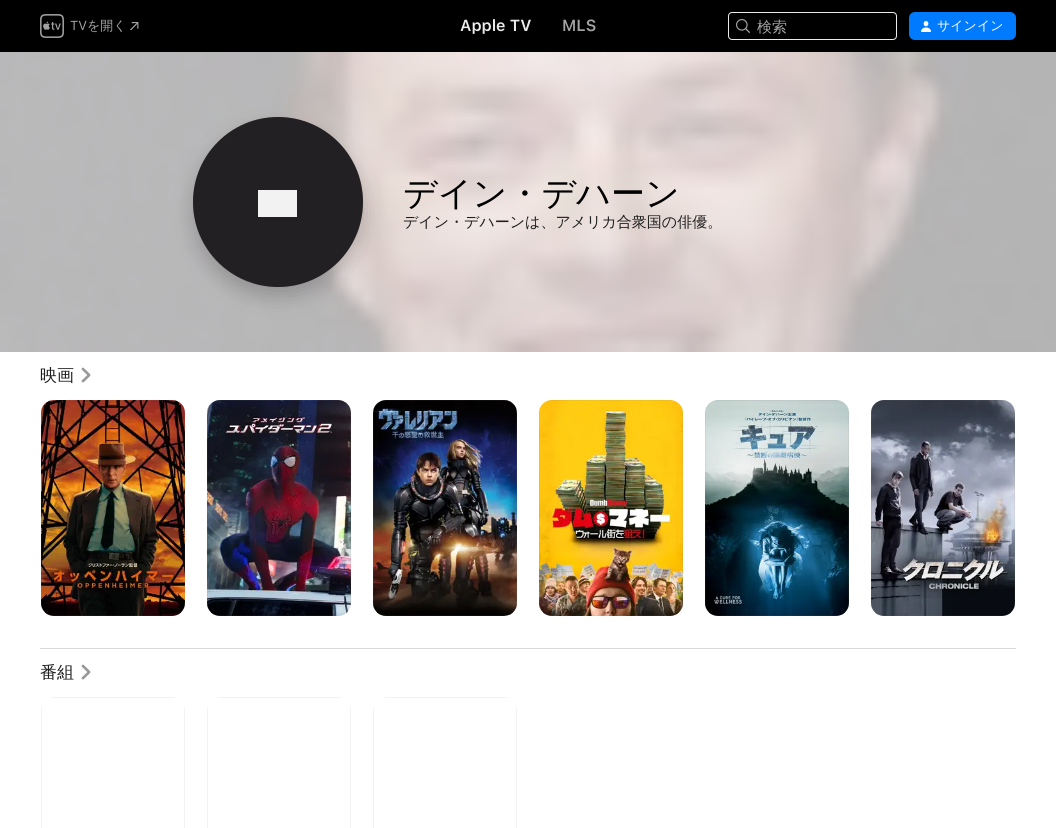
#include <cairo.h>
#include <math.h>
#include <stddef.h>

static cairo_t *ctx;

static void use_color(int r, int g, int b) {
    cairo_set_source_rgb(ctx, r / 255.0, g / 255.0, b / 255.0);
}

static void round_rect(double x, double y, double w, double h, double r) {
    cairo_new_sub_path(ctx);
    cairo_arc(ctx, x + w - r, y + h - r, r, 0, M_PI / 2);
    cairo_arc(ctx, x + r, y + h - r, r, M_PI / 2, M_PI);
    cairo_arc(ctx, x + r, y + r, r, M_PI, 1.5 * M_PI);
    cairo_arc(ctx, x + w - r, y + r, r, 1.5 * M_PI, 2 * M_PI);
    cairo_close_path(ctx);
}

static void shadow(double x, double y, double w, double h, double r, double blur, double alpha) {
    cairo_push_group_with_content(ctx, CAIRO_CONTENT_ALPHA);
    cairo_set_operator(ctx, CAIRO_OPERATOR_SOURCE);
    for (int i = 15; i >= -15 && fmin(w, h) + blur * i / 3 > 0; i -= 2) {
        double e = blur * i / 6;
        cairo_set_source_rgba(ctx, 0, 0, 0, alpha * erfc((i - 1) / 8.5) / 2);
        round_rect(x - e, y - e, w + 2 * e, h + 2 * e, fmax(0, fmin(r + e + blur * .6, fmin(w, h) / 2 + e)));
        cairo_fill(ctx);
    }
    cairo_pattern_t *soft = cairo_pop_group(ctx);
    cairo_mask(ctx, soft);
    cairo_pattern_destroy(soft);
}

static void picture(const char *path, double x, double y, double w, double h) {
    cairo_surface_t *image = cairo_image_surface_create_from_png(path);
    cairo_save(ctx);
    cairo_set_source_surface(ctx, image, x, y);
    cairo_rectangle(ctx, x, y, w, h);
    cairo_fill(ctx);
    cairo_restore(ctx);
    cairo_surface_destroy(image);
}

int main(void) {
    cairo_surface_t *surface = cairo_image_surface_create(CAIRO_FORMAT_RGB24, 1056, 828);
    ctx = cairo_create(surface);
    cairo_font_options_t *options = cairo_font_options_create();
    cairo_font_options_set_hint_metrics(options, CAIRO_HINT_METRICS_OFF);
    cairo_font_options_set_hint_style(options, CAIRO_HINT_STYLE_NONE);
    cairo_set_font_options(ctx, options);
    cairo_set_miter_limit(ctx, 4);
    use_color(255, 255, 255);
    cairo_paint(ctx);
    use_color(0, 0, 0);
    cairo_rectangle(ctx, 0, 0, 1056, 52);
    cairo_fill(ctx);
    picture("img1.png", 40, 14, 24, 24);
    cairo_select_font_face(ctx, "SF", CAIRO_FONT_SLANT_NORMAL, CAIRO_FONT_WEIGHT_NORMAL);
    cairo_set_font_size(ctx, 13);
    use_color(163, 163, 163);
    cairo_move_to(ctx, 70, 30);
    cairo_show_text(ctx, "TV");
    cairo_select_font_face(ctx, "WenQuanYi Zen Hei Medium", CAIRO_FONT_SLANT_NORMAL, CAIRO_FONT_WEIGHT_NORMAL);
    cairo_move_to(ctx, 87, 30);
    cairo_show_text(ctx, "を開く");
    picture("img2.png", 130, 22, 9, 8);
    cairo_select_font_face(ctx, "SF SemiBold", CAIRO_FONT_SLANT_NORMAL, CAIRO_FONT_WEIGHT_NORMAL);
    cairo_set_font_size(ctx, 16);
    use_color(235, 235, 235);
    cairo_move_to(ctx, 460, 31);
    cairo_show_text(ctx, "Apple TV");
    use_color(163, 163, 163);
    cairo_move_to(ctx, 562, 31);
    cairo_show_text(ctx, "MLS");
    round_rect(728.5, 12.5, 168, 27, 3.5);
    use_color(235, 235, 235);
    cairo_set_line_width(ctx, 1);
    cairo_stroke(ctx);
    picture("img3.png", 736, 19, 14, 14);
    cairo_select_font_face(ctx, "WenQuanYi Zen Hei Medium", CAIRO_FONT_SLANT_NORMAL, CAIRO_FONT_WEIGHT_NORMAL);
    cairo_set_font_size(ctx, 15);
    use_color(163, 163, 163);
    cairo_move_to(ctx, 757, 32);
    cairo_show_text(ctx, "検索");
    use_color(0, 122, 255);
    round_rect(909, 12, 107, 28, 6);
    cairo_fill(ctx);
    picture("img4.png", 921, 21, 10, 11);
    cairo_set_font_size(ctx, 13);
    use_color(255, 255, 255);
    cairo_move_to(ctx, 937, 30);
    cairo_show_text(ctx, "サインイン");
    picture("img5.png", 0, 52, 1056, 300);
    use_color(0, 0, 0);
    shadow(193, 127, 170, 170, 85, 10, 0.2);
    cairo_arc(ctx, 278, 202, 84.5, 0, 2 * M_PI);
    cairo_set_source_rgba(ctx, 0, 0, 0, 0.08);
    cairo_stroke(ctx);
    use_color(24, 22, 25);
    cairo_arc(ctx, 278, 202, 85, 0, 2 * M_PI);
    cairo_fill(ctx);
    use_color(255, 255, 255);
    cairo_rectangle(ctx, 258, 190, 39, 27);
    cairo_fill(ctx);
    cairo_set_source_rgba(ctx, 0.502, 0.502, 0.502, 0.1);
    cairo_new_path(ctx);
    cairo_move_to(ctx, 278, 117);
    cairo_curve_to(ctx, 325, 117, 363, 155, 363, 202);
    cairo_curve_to(ctx, 363, 249, 325, 287, 278, 287);
    cairo_curve_to(ctx, 231, 287, 193, 249, 193, 202);
    cairo_curve_to(ctx, 193, 155, 231, 117, 278, 117);
    cairo_close_path(ctx);
    cairo_fill(ctx);
    cairo_set_font_size(ctx, 34);
    use_color(0, 0, 0);
    cairo_move_to(ctx, 403, 205);
    cairo_show_text(ctx, "デイン・デハーン");
    cairo_set_font_size(ctx, 15);
    use_color(31, 31, 31);
    cairo_move_to(ctx, 403, 227);
    cairo_show_text(ctx, "デイン・デハーンは、アメリカ合衆国の俳優。");
    cairo_set_font_size(ctx, 17);
    cairo_move_to(ctx, 40, 381);
    cairo_show_text(ctx, "映画");
    picture("img6.png", 81, 367, 10, 16);
    picture("img7.png", 41, 400, 144, 216);
    cairo_set_source_rgba(ctx, 0.502, 0.502, 0.502, 0.1);
    cairo_set_fill_rule(ctx, CAIRO_FILL_RULE_EVEN_ODD);
    cairo_new_path(ctx);
    cairo_move_to(ctx, 41, 413);
    cairo_line_to(ctx, 41, 603);
    cairo_line_to(ctx, 42, 608);
    cairo_line_to(ctx, 42, 408);
    cairo_close_path(ctx);
    cairo_move_to(ctx, 54, 400);
    cairo_line_to(ctx, 49, 401);
    cairo_line_to(ctx, 177, 401);
    cairo_line_to(ctx, 172, 400);
    cairo_close_path(ctx);
    cairo_move_to(ctx, 185, 413);
    cairo_line_to(ctx, 184, 408);
    cairo_line_to(ctx, 184, 608);
    cairo_line_to(ctx, 185, 603);
    cairo_close_path(ctx);
    cairo_move_to(ctx, 172, 616);
    cairo_line_to(ctx, 177, 615);
    cairo_line_to(ctx, 49, 615);
    cairo_line_to(ctx, 54, 616);
    cairo_close_path(ctx);
    cairo_fill(ctx);
    picture("img8.png", 207, 400, 144, 216);
    cairo_new_path(ctx);
    cairo_move_to(ctx, 207, 413);
    cairo_line_to(ctx, 207, 603);
    cairo_line_to(ctx, 208, 608);
    cairo_line_to(ctx, 208, 408);
    cairo_close_path(ctx);
    cairo_move_to(ctx, 220, 400);
    cairo_line_to(ctx, 215, 401);
    cairo_line_to(ctx, 343, 401);
    cairo_line_to(ctx, 338, 400);
    cairo_close_path(ctx);
    cairo_move_to(ctx, 351, 413);
    cairo_line_to(ctx, 350, 408);
    cairo_line_to(ctx, 350, 608);
    cairo_line_to(ctx, 351, 603);
    cairo_close_path(ctx);
    cairo_move_to(ctx, 338, 616);
    cairo_line_to(ctx, 343, 615);
    cairo_line_to(ctx, 215, 615);
    cairo_line_to(ctx, 220, 616);
    cairo_close_path(ctx);
    cairo_fill(ctx);
    picture("img9.png", 373, 400, 144, 216);
    cairo_new_path(ctx);
    cairo_move_to(ctx, 373, 413);
    cairo_line_to(ctx, 373, 603);
    cairo_line_to(ctx, 374, 608);
    cairo_line_to(ctx, 374, 408);
    cairo_close_path(ctx);
    cairo_move_to(ctx, 386, 400);
    cairo_line_to(ctx, 381, 401);
    cairo_line_to(ctx, 509, 401);
    cairo_line_to(ctx, 504, 400);
    cairo_close_path(ctx);
    cairo_move_to(ctx, 517, 413);
    cairo_line_to(ctx, 516, 408);
    cairo_line_to(ctx, 516, 608);
    cairo_line_to(ctx, 517, 603);
    cairo_close_path(ctx);
    cairo_move_to(ctx, 504, 616);
    cairo_line_to(ctx, 509, 615);
    cairo_line_to(ctx, 381, 615);
    cairo_line_to(ctx, 386, 616);
    cairo_close_path(ctx);
    cairo_fill(ctx);
    picture("img10.png", 539, 400, 144, 216);
    cairo_new_path(ctx);
    cairo_move_to(ctx, 539, 413);
    cairo_line_to(ctx, 539, 603);
    cairo_line_to(ctx, 540, 608);
    cairo_line_to(ctx, 540, 408);
    cairo_close_path(ctx);
    cairo_move_to(ctx, 552, 400);
    cairo_line_to(ctx, 547, 401);
    cairo_line_to(ctx, 675, 401);
    cairo_line_to(ctx, 670, 400);
    cairo_close_path(ctx);
    cairo_move_to(ctx, 683, 413);
    cairo_line_to(ctx, 682, 408);
    cairo_line_to(ctx, 682, 608);
    cairo_line_to(ctx, 683, 603);
    cairo_close_path(ctx);
    cairo_move_to(ctx, 670, 616);
    cairo_line_to(ctx, 675, 615);
    cairo_line_to(ctx, 547, 615);
    cairo_line_to(ctx, 552, 616);
    cairo_close_path(ctx);
    cairo_fill(ctx);
    picture("img11.png", 705, 400, 144, 216);
    cairo_new_path(ctx);
    cairo_move_to(ctx, 705, 413);
    cairo_line_to(ctx, 705, 603);
    cairo_line_to(ctx, 706, 608);
    cairo_line_to(ctx, 706, 408);
    cairo_close_path(ctx);
    cairo_move_to(ctx, 718, 400);
    cairo_line_to(ctx, 713, 401);
    cairo_line_to(ctx, 841, 401);
    cairo_line_to(ctx, 836, 400);
    cairo_close_path(ctx);
    cairo_move_to(ctx, 849, 413);
    cairo_line_to(ctx, 848, 408);
    cairo_line_to(ctx, 848, 608);
    cairo_line_to(ctx, 849, 603);
    cairo_close_path(ctx);
    cairo_move_to(ctx, 836, 616);
    cairo_line_to(ctx, 841, 615);
    cairo_line_to(ctx, 713, 615);
    cairo_line_to(ctx, 718, 616);
    cairo_close_path(ctx);
    cairo_fill(ctx);
    picture("img12.png", 871, 400, 144, 216);
    cairo_new_path(ctx);
    cairo_move_to(ctx, 871, 413);
    cairo_line_to(ctx, 871, 603);
    cairo_line_to(ctx, 872, 608);
    cairo_line_to(ctx, 872, 408);
    cairo_close_path(ctx);
    cairo_move_to(ctx, 884, 400);
    cairo_line_to(ctx, 879, 401);
    cairo_line_to(ctx, 1007, 401);
    cairo_line_to(ctx, 1002, 400);
    cairo_close_path(ctx);
    cairo_move_to(ctx, 1015, 413);
    cairo_line_to(ctx, 1014, 408);
    cairo_line_to(ctx, 1014, 608);
    cairo_line_to(ctx, 1015, 603);
    cairo_close_path(ctx);
    cairo_move_to(ctx, 1002, 616);
    cairo_line_to(ctx, 1007, 615);
    cairo_line_to(ctx, 879, 615);
    cairo_line_to(ctx, 884, 616);
    cairo_close_path(ctx);
    cairo_fill(ctx);
    use_color(217, 217, 217);
    cairo_rectangle(ctx, 40, 648, 976, 1);
    cairo_fill(ctx);
    use_color(31, 31, 31);
    cairo_move_to(ctx, 40, 678);
    cairo_show_text(ctx, "番組");
    picture("img6.png", 81, 664, 10, 16);
    use_color(242, 242, 242);
    cairo_new_path(ctx);
    cairo_move_to(ctx, 41, 710);
    cairo_line_to(ctx, 41, 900);
    cairo_line_to(ctx, 42, 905);
    cairo_line_to(ctx, 42, 705);
    cairo_close_path(ctx);
    cairo_move_to(ctx, 54, 697);
    cairo_line_to(ctx, 49, 698);
    cairo_line_to(ctx, 177, 698);
    cairo_line_to(ctx, 172, 697);
    cairo_close_path(ctx);
    cairo_move_to(ctx, 185, 710);
    cairo_line_to(ctx, 184, 705);
    cairo_line_to(ctx, 184, 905);
    cairo_line_to(ctx, 185, 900);
    cairo_close_path(ctx);
    cairo_move_to(ctx, 172, 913);
    cairo_line_to(ctx, 177, 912);
    cairo_line_to(ctx, 49, 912);
    cairo_line_to(ctx, 54, 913);
    cairo_close_path(ctx);
    cairo_fill(ctx);
    cairo_new_path(ctx);
    cairo_move_to(ctx, 207, 710);
    cairo_line_to(ctx, 207, 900);
    cairo_line_to(ctx, 208, 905);
    cairo_line_to(ctx, 208, 705);
    cairo_close_path(ctx);
    cairo_move_to(ctx, 220, 697);
    cairo_line_to(ctx, 215, 698);
    cairo_line_to(ctx, 343, 698);
    cairo_line_to(ctx, 338, 697);
    cairo_close_path(ctx);
    cairo_move_to(ctx, 351, 710);
    cairo_line_to(ctx, 350, 705);
    cairo_line_to(ctx, 350, 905);
    cairo_line_to(ctx, 351, 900);
    cairo_close_path(ctx);
    cairo_move_to(ctx, 338, 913);
    cairo_line_to(ctx, 343, 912);
    cairo_line_to(ctx, 215, 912);
    cairo_line_to(ctx, 220, 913);
    cairo_close_path(ctx);
    cairo_fill(ctx);
    cairo_new_path(ctx);
    cairo_move_to(ctx, 373, 710);
    cairo_line_to(ctx, 373, 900);
    cairo_line_to(ctx, 374, 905);
    cairo_line_to(ctx, 374, 705);
    cairo_close_path(ctx);
    cairo_move_to(ctx, 386, 697);
    cairo_line_to(ctx, 381, 698);
    cairo_line_to(ctx, 509, 698);
    cairo_line_to(ctx, 504, 697);
    cairo_close_path(ctx);
    cairo_move_to(ctx, 517, 710);
    cairo_line_to(ctx, 516, 705);
    cairo_line_to(ctx, 516, 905);
    cairo_line_to(ctx, 517, 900);
    cairo_close_path(ctx);
    cairo_move_to(ctx, 504, 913);
    cairo_line_to(ctx, 509, 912);
    cairo_line_to(ctx, 381, 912);
    cairo_line_to(ctx, 386, 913);
    cairo_close_path(ctx);
    cairo_fill(ctx);
    cairo_surface_write_to_png(surface, "result.png");
    cairo_font_options_destroy(options);
    cairo_destroy(ctx);
    cairo_surface_destroy(surface);
    return 0;
}
